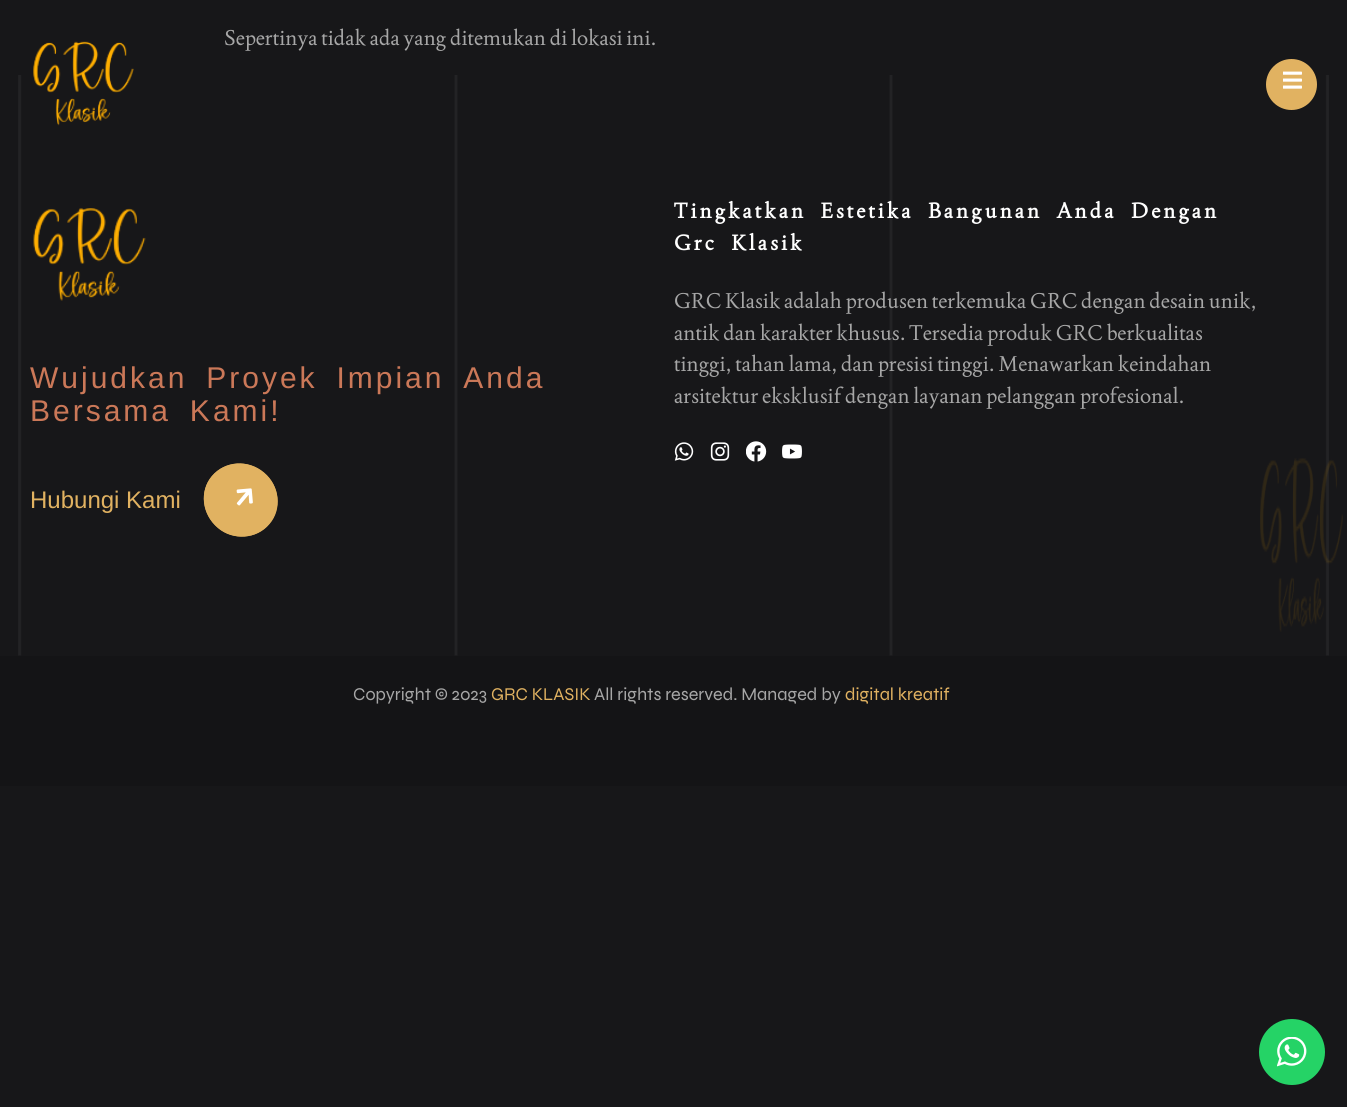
#include <cairo.h>
#include <math.h>
#include <stddef.h>

static cairo_t *ctx;

static void use_color(int r, int g, int b) {
    cairo_set_source_rgb(ctx, r / 255.0, g / 255.0, b / 255.0);
}

static void spaced_text(double x, double y, const char *s, double letter, double word) {
    cairo_move_to(ctx, x, y);
    while (*s) {
        char ch[5] = {0};
        int n = 0;
        do ch[n++] = *s++; while ((*s & 0xC0) == 0x80);
        cairo_show_text(ctx, ch);
        cairo_rel_move_to(ctx, letter + word * (*ch == ' '), 0);
    }
}

static void picture(const char *path, double x, double y, double w, double h) {
    cairo_surface_t *image = cairo_image_surface_create_from_png(path);
    cairo_save(ctx);
    cairo_set_source_surface(ctx, image, x, y);
    cairo_rectangle(ctx, x, y, w, h);
    cairo_fill(ctx);
    cairo_restore(ctx);
    cairo_surface_destroy(image);
}

int main(void) {
    cairo_surface_t *surface = cairo_image_surface_create(CAIRO_FORMAT_RGB24, 1347, 1107);
    ctx = cairo_create(surface);
    cairo_font_options_t *options = cairo_font_options_create();
    cairo_font_options_set_hint_metrics(options, CAIRO_HINT_METRICS_OFF);
    cairo_font_options_set_hint_style(options, CAIRO_HINT_STYLE_NONE);
    cairo_set_font_options(ctx, options);
    cairo_set_miter_limit(ctx, 4);
    use_color(23, 23, 25);
    cairo_paint(ctx);
    cairo_select_font_face(ctx, "Joan", CAIRO_FONT_SLANT_NORMAL, CAIRO_FONT_WEIGHT_NORMAL);
    cairo_set_font_size(ctx, 21);
    use_color(167, 167, 167);
    cairo_move_to(ctx, 224, 45);
    cairo_show_text(ctx, "Sepertinya tidak ada yang ditemukan di lokasi ini.");
    picture("img3.png", 18, 75, 1311, 581);
    picture("img1.png", 33, 41, 101, 85);
    use_color(225, 178, 97);
    cairo_arc(ctx, 1291.5, 84.5, 24.5, 0, 2 * M_PI);
    cairo_fill_preserve(ctx);
    cairo_stroke(ctx);
    picture("img2.png", 1283, 71, 19, 18);
    cairo_select_font_face(ctx, "Joan", CAIRO_FONT_SLANT_NORMAL, CAIRO_FONT_WEIGHT_BOLD);
    use_color(255, 255, 255);
    spaced_text(674, 218, "Tingkatkan Estetika Bangunan Anda Dengan", 3, 7.5);
    spaced_text(674, 250, "Grc Klasik", 3, 7.5);
    cairo_select_font_face(ctx, "Joan", CAIRO_FONT_SLANT_NORMAL, CAIRO_FONT_WEIGHT_NORMAL);
    use_color(167, 167, 167);
    cairo_move_to(ctx, 674, 308);
    cairo_show_text(ctx, "GRC Klasik adalah produsen terkemuka GRC dengan desain unik,");
    cairo_move_to(ctx, 674, 340);
    cairo_show_text(ctx, "antik dan karakter khusus. Tersedia produk GRC berkualitas");
    cairo_move_to(ctx, 674, 371);
    cairo_show_text(ctx, "tinggi, tahan lama, dan presisi tinggi. Menawarkan keindahan");
    cairo_move_to(ctx, 674, 403);
    cairo_show_text(ctx, "arsitektur eksklusif dengan layanan pelanggan profesional.");
    picture("img4.png", 674, 442, 20, 19);
    picture("img5.png", 710, 442, 20, 19);
    picture("img6.png", 746, 441, 21, 21);
    picture("img7.png", 782, 444, 20, 15);
    picture("img8.png", 33, 208, 113, 93);
    cairo_select_font_face(ctx, "Liberation Sans", CAIRO_FONT_SLANT_NORMAL, CAIRO_FONT_WEIGHT_NORMAL);
    cairo_set_font_size(ctx, 30);
    use_color(203, 120, 88);
    spaced_text(30, 388, "Wujudkan Proyek Impian Anda", 3, 7.5);
    spaced_text(30, 421, "Bersama Kami!", 3, 7.5);
    cairo_set_font_size(ctx, 24);
    use_color(225, 178, 97);
    cairo_move_to(ctx, 30, 508);
    cairo_show_text(ctx, "Hubungi Kami");
    cairo_new_path(ctx);
    cairo_move_to(ctx, 264, 473);
    cairo_curve_to(ctx, 280, 486, 282, 509, 269, 524);
    cairo_curve_to(ctx, 257, 539, 233, 541, 218, 528);
    cairo_curve_to(ctx, 202, 514, 199, 491, 212, 476);
    cairo_curve_to(ctx, 225, 461, 248, 459, 264, 473);
    cairo_close_path(ctx);
    cairo_fill(ctx);
    cairo_new_path(ctx);
    cairo_move_to(ctx, 263.5, 473);
    cairo_curve_to(ctx, 279, 486, 281.5, 509, 269, 523.5);
    cairo_curve_to(ctx, 256.5, 538.5, 233.5, 540, 218, 527);
    cairo_curve_to(ctx, 202.5, 514, 200, 491.5, 212.5, 476.5);
    cairo_curve_to(ctx, 225, 461.5, 248, 460, 263.5, 473);
    cairo_close_path(ctx);
    cairo_set_line_width(ctx, 1.5);
    cairo_stroke(ctx);
    picture("img9.png", 236, 488, 17, 18);
    picture("img10.png", 1260, 458, 83, 174);
    use_color(20, 20, 22);
    cairo_rectangle(ctx, 0, 656, 1347, 130);
    cairo_fill(ctx);
    cairo_select_font_face(ctx, "Syne", CAIRO_FONT_SLANT_NORMAL, CAIRO_FONT_WEIGHT_NORMAL);
    cairo_set_font_size(ctx, 18);
    use_color(167, 167, 167);
    cairo_move_to(ctx, 353, 700);
    cairo_show_text(ctx, "Copyright © 2023");
    use_color(225, 178, 97);
    cairo_move_to(ctx, 491, 700);
    cairo_show_text(ctx, "GRC KLASIK");
    use_color(167, 167, 167);
    cairo_move_to(ctx, 594, 700);
    cairo_show_text(ctx, "All rights reserved. Managed by");
    use_color(225, 178, 97);
    cairo_move_to(ctx, 845, 700);
    cairo_show_text(ctx, "digital kreatif");
    use_color(37, 211, 102);
    cairo_new_path(ctx);
    cairo_arc(ctx, 1292, 1052, 33, 0, 2 * M_PI);
    cairo_fill(ctx);
    picture("img11.png", 1277, 1037, 30, 30);
    cairo_surface_write_to_png(surface, "result.png");
    cairo_font_options_destroy(options);
    cairo_destroy(ctx);
    cairo_surface_destroy(surface);
    return 0;
}
